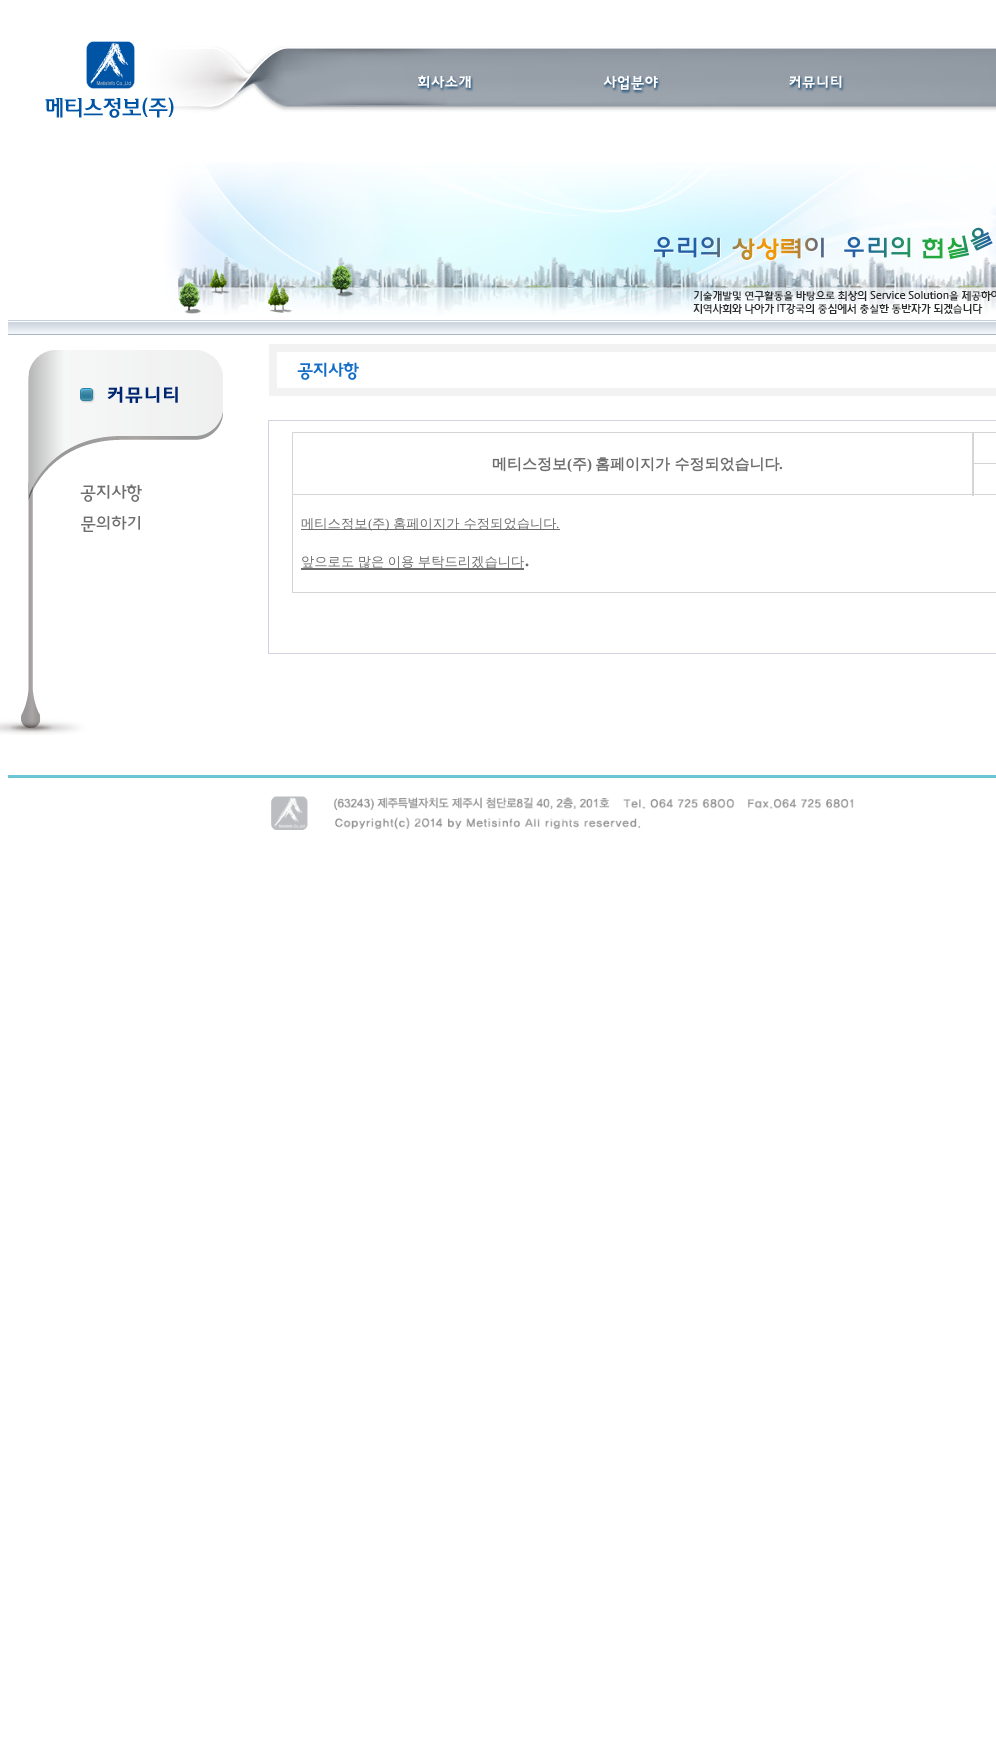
#include <cairo.h>
#include <math.h>
#include <stddef.h>

static cairo_t *ctx;

static void use_color(int r, int g, int b) {
    cairo_set_source_rgb(ctx, r / 255.0, g / 255.0, b / 255.0);
}

static void spaced_text(double x, double y, const char *s, double letter, double word) {
    cairo_move_to(ctx, x, y);
    while (*s) {
        char ch[5] = {0};
        int n = 0;
        do ch[n++] = *s++; while ((*s & 0xC0) == 0x80);
        cairo_show_text(ctx, ch);
        cairo_rel_move_to(ctx, letter + word * (*ch == ' '), 0);
    }
}

static void picture(const char *path, double x, double y, double w, double h) {
    cairo_surface_t *image = cairo_image_surface_create_from_png(path);
    cairo_save(ctx);
    cairo_set_source_surface(ctx, image, x, y);
    cairo_rectangle(ctx, x, y, w, h);
    cairo_fill(ctx);
    cairo_restore(ctx);
    cairo_surface_destroy(image);
}

int main(void) {
    cairo_surface_t *surface = cairo_image_surface_create(CAIRO_FORMAT_RGB24, 996, 1754);
    ctx = cairo_create(surface);
    cairo_font_options_t *options = cairo_font_options_create();
    cairo_font_options_set_hint_metrics(options, CAIRO_HINT_METRICS_OFF);
    cairo_font_options_set_hint_style(options, CAIRO_HINT_STYLE_NONE);
    cairo_set_font_options(ctx, options);
    cairo_set_miter_limit(ctx, 4);
    use_color(255, 255, 255);
    cairo_paint(ctx);
    picture("img1.png", 45, 41, 158, 77);
    picture("img2.png", 203, 46, 793, 66);
    picture("img3.png", 417, 75, 57, 17);
    picture("img4.png", 603, 75, 58, 19);
    picture("img5.png", 789, 75, 56, 17);
    picture("img6.png", 8, 162, 988, 173);
    picture("img7.png", 269, 344, 727, 52);
    picture("img8.png", 0, 350, 223, 385);
    picture("img9.png", 80, 484, 62, 18);
    picture("img10.png", 81, 515, 59, 17);
    cairo_rectangle(ctx, 268.5, 420.5, 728, 233);
    use_color(211, 211, 225);
    cairo_set_line_width(ctx, 1);
    cairo_stroke(ctx);
    use_color(213, 213, 213);
    cairo_rectangle(ctx, 292, 432, 704, 1);
    cairo_fill(ctx);
    cairo_rectangle(ctx, 292, 494, 704, 1);
    cairo_fill(ctx);
    cairo_rectangle(ctx, 292, 592, 704, 1);
    cairo_fill(ctx);
    cairo_rectangle(ctx, 292, 494, 1, 99);
    cairo_fill(ctx);
    cairo_rectangle(ctx, 292, 432, 1, 63);
    cairo_fill(ctx);
    cairo_select_font_face(ctx, "WenQuanYi Zen Hei", CAIRO_FONT_SLANT_NORMAL, CAIRO_FONT_WEIGHT_BOLD);
    cairo_set_font_size(ctx, 15);
    use_color(109, 109, 109);
    cairo_move_to(ctx, 492, 469);
    cairo_show_text(ctx, "메티스정보");
    cairo_select_font_face(ctx, "Liberation Serif", CAIRO_FONT_SLANT_NORMAL, CAIRO_FONT_WEIGHT_BOLD);
    cairo_move_to(ctx, 567, 469);
    cairo_show_text(ctx, "(");
    cairo_select_font_face(ctx, "WenQuanYi Zen Hei", CAIRO_FONT_SLANT_NORMAL, CAIRO_FONT_WEIGHT_BOLD);
    cairo_move_to(ctx, 572, 469);
    cairo_show_text(ctx, "주");
    cairo_select_font_face(ctx, "Liberation Serif", CAIRO_FONT_SLANT_NORMAL, CAIRO_FONT_WEIGHT_BOLD);
    cairo_move_to(ctx, 587, 469);
    cairo_show_text(ctx, ")");
    cairo_select_font_face(ctx, "WenQuanYi Zen Hei", CAIRO_FONT_SLANT_NORMAL, CAIRO_FONT_WEIGHT_BOLD);
    cairo_move_to(ctx, 595, 469);
    cairo_show_text(ctx, "홈페이지가 수정되었습니다");
    cairo_select_font_face(ctx, "Liberation Serif", CAIRO_FONT_SLANT_NORMAL, CAIRO_FONT_WEIGHT_BOLD);
    cairo_move_to(ctx, 779, 469);
    cairo_show_text(ctx, ".");
    use_color(213, 213, 213);
    cairo_rectangle(ctx, 972, 463, 24, 1);
    cairo_fill(ctx);
    cairo_rectangle(ctx, 972, 432, 2, 64);
    cairo_fill(ctx);
    use_color(109, 109, 109);
    cairo_rectangle(ctx, 301, 529, 259, 1);
    cairo_fill(ctx);
    cairo_select_font_face(ctx, "WenQuanYi Zen Hei Medium", CAIRO_FONT_SLANT_NORMAL, CAIRO_FONT_WEIGHT_NORMAL);
    cairo_set_font_size(ctx, 13.3);
    cairo_move_to(ctx, 301, 528);
    cairo_show_text(ctx, "메티스정보");
    cairo_select_font_face(ctx, "Liberation Serif", CAIRO_FONT_SLANT_NORMAL, CAIRO_FONT_WEIGHT_NORMAL);
    cairo_move_to(ctx, 368, 528);
    cairo_show_text(ctx, "(");
    cairo_select_font_face(ctx, "WenQuanYi Zen Hei Medium", CAIRO_FONT_SLANT_NORMAL, CAIRO_FONT_WEIGHT_NORMAL);
    cairo_move_to(ctx, 372, 528);
    cairo_show_text(ctx, "주");
    cairo_select_font_face(ctx, "Liberation Serif", CAIRO_FONT_SLANT_NORMAL, CAIRO_FONT_WEIGHT_NORMAL);
    cairo_move_to(ctx, 385, 528);
    cairo_show_text(ctx, ")");
    cairo_select_font_face(ctx, "WenQuanYi Zen Hei Medium", CAIRO_FONT_SLANT_NORMAL, CAIRO_FONT_WEIGHT_NORMAL);
    cairo_move_to(ctx, 393, 528);
    cairo_show_text(ctx, "홈페이지가 수정되었습니다");
    cairo_select_font_face(ctx, "Liberation Serif", CAIRO_FONT_SLANT_NORMAL, CAIRO_FONT_WEIGHT_NORMAL);
    cairo_move_to(ctx, 556, 528);
    cairo_show_text(ctx, ".");
    cairo_rectangle(ctx, 301, 568, 223, 2);
    cairo_fill(ctx);
    cairo_select_font_face(ctx, "WenQuanYi Zen Hei Medium", CAIRO_FONT_SLANT_NORMAL, CAIRO_FONT_WEIGHT_NORMAL);
    spaced_text(301, 566, "앞으로도 많은 이용 부탁드리겠습니다", 0, -0.5);
    cairo_select_font_face(ctx, "Liberation Serif", CAIRO_FONT_SLANT_NORMAL, CAIRO_FONT_WEIGHT_NORMAL);
    cairo_set_font_size(ctx, 24);
    cairo_move_to(ctx, 524, 566);
    cairo_show_text(ctx, ".");
    use_color(108, 197, 212);
    cairo_rectangle(ctx, 8, 775, 988, 3);
    cairo_fill(ctx);
    picture("img11.png", 271, 796, 583, 34);
    cairo_surface_write_to_png(surface, "result.png");
    cairo_font_options_destroy(options);
    cairo_destroy(ctx);
    cairo_surface_destroy(surface);
    return 0;
}
